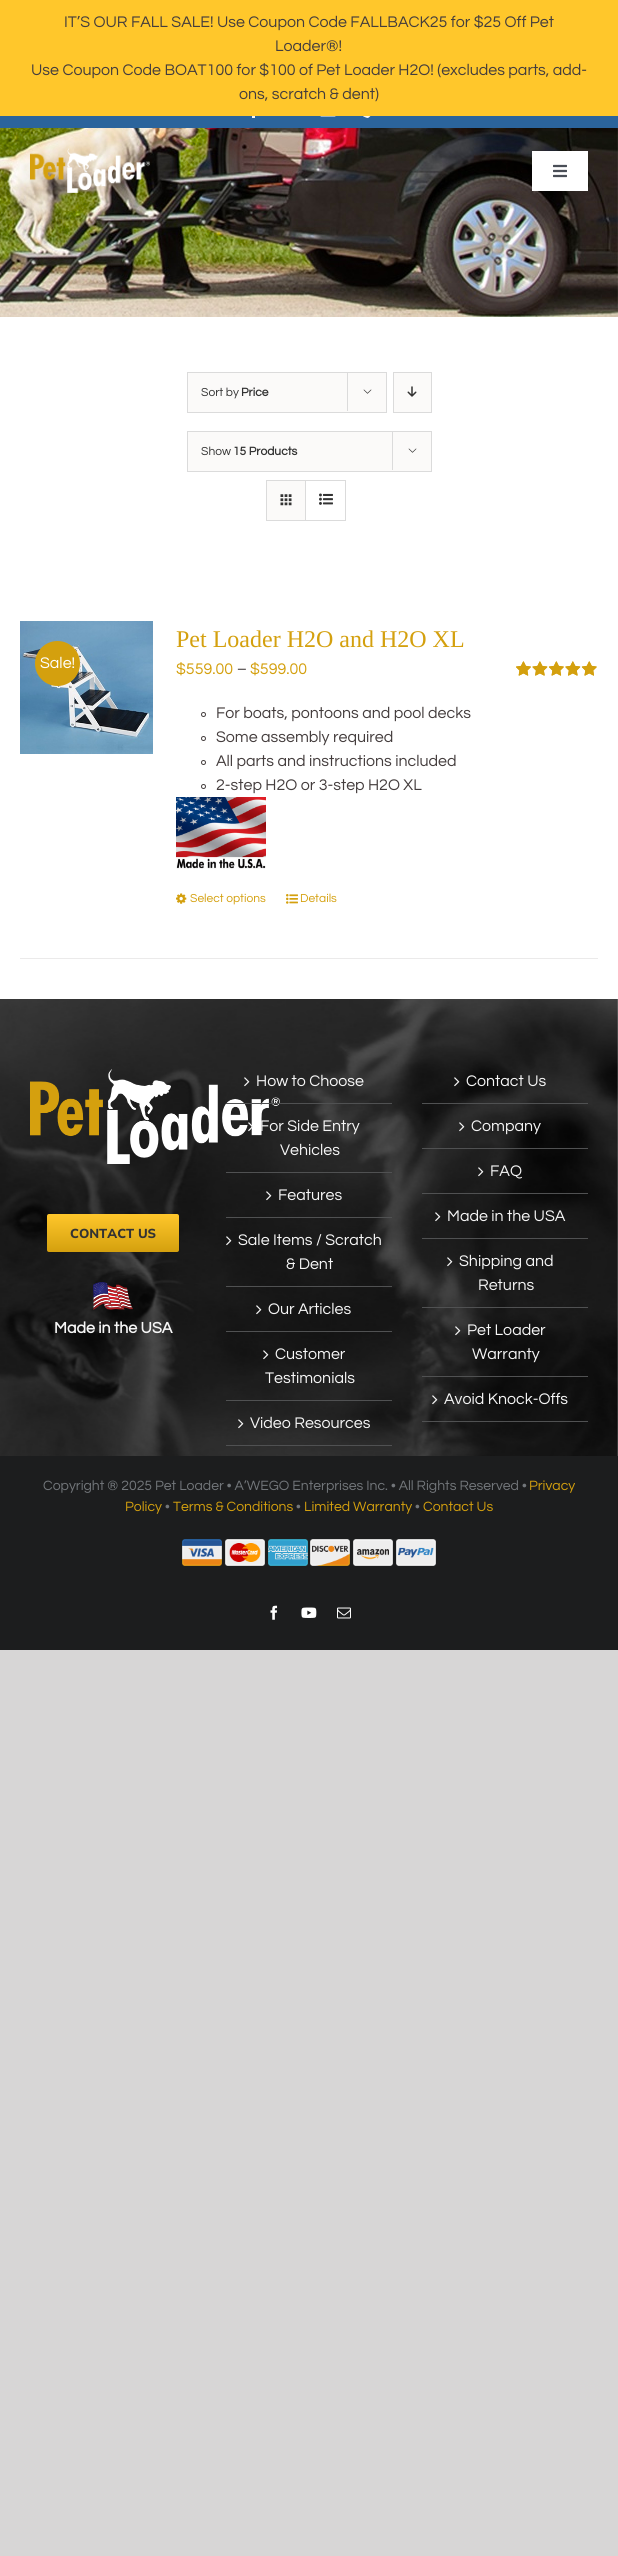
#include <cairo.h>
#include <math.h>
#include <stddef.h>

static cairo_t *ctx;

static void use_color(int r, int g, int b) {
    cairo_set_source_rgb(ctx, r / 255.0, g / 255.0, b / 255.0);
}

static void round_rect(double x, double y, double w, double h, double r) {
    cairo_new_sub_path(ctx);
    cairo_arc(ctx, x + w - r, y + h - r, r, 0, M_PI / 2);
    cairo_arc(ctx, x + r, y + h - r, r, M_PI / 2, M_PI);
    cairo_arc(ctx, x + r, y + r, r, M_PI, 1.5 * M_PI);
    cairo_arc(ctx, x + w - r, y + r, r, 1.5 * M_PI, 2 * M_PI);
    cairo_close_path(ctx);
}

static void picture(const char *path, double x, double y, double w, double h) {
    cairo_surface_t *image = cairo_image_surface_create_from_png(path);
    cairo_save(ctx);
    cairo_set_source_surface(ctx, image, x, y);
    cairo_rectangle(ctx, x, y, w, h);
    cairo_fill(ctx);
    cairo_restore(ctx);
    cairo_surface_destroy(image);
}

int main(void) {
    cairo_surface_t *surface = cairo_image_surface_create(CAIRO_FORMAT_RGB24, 618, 2556);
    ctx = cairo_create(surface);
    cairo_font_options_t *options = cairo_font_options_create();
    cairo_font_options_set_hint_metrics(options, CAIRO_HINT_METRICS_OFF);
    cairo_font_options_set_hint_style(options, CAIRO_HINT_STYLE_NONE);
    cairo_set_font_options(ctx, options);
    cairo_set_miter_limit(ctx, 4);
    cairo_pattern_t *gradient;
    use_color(215, 214, 214);
    cairo_paint(ctx);
    use_color(255, 255, 255);
    cairo_rectangle(ctx, 0, 317, 618, 1139);
    cairo_fill(ctx);
    use_color(255, 199, 43);
    cairo_rectangle(ctx, 0, 0, 618, 116);
    cairo_fill(ctx);
    cairo_select_font_face(ctx, "Questrial", CAIRO_FONT_SLANT_NORMAL, CAIRO_FONT_WEIGHT_NORMAL);
    cairo_set_font_size(ctx, 16);
    use_color(68, 61, 61);
    cairo_move_to(ctx, 64, 27);
    cairo_show_text(ctx, "IT’S OUR FALL SALE! Use Coupon Code FALLBACK25 for $25 Off Pet");
    cairo_move_to(ctx, 275, 51);
    cairo_show_text(ctx, "Loader®!");
    cairo_move_to(ctx, 31, 75);
    cairo_show_text(ctx, "Use Coupon Code BOAT100 for $100 of Pet Loader H2O! (excludes parts, add-");
    cairo_move_to(ctx, 239, 99);
    cairo_show_text(ctx, "ons, scratch & dent)");
    use_color(43, 100, 156);
    cairo_rectangle(ctx, 0, 116, 618, 12);
    cairo_fill(ctx);
    picture("img1.png", 252, 116, 3, 2);
    picture("img2.png", 320, 116, 16, 1);
    picture("img3.png", 363, 116, 8, 2);
    picture("img6.png", 0, 128, 618, 189);
    picture("img4.png", 30, 148, 120, 45);
    use_color(255, 255, 255);
    cairo_rectangle(ctx, 532, 151, 56, 40);
    cairo_fill(ctx);
    picture("img5.png", 553, 164, 14, 14);
    use_color(251, 250, 249);
    cairo_rectangle(ctx, 187.5, 372.5, 199, 40);
    cairo_fill_preserve(ctx);
    use_color(219, 219, 219);
    cairo_set_line_width(ctx, 1);
    cairo_stroke(ctx);
    cairo_set_font_size(ctx, 12);
    use_color(51, 51, 51);
    cairo_move_to(ctx, 201, 396);
    cairo_show_text(ctx, "Sort by");
    cairo_select_font_face(ctx, "Questrial", CAIRO_FONT_SLANT_NORMAL, CAIRO_FONT_WEIGHT_BOLD);
    cairo_move_to(ctx, 241, 396);
    cairo_show_text(ctx, "Price");
    use_color(219, 219, 219);
    cairo_rectangle(ctx, 347, 372, 1, 39);
    cairo_fill(ctx);
    picture("img7.png", 363, 389, 9, 5);
    use_color(251, 250, 249);
    cairo_rectangle(ctx, 393.5, 372.5, 38, 40);
    cairo_fill_preserve(ctx);
    use_color(219, 219, 219);
    cairo_stroke(ctx);
    picture("img8.png", 407, 386, 10, 11);
    use_color(251, 250, 249);
    cairo_rectangle(ctx, 187.5, 431.5, 244, 40);
    cairo_fill_preserve(ctx);
    use_color(219, 219, 219);
    cairo_stroke(ctx);
    cairo_select_font_face(ctx, "Questrial", CAIRO_FONT_SLANT_NORMAL, CAIRO_FONT_WEIGHT_NORMAL);
    use_color(51, 51, 51);
    cairo_move_to(ctx, 201, 455);
    cairo_show_text(ctx, "Show");
    cairo_select_font_face(ctx, "Questrial", CAIRO_FONT_SLANT_NORMAL, CAIRO_FONT_WEIGHT_BOLD);
    cairo_move_to(ctx, 233, 455);
    cairo_show_text(ctx, "15 Products");
    use_color(219, 219, 219);
    cairo_rectangle(ctx, 392, 431, 1, 39);
    cairo_fill(ctx);
    picture("img7.png", 408, 448, 9, 5);
    cairo_rectangle(ctx, 266.5, 480.5, 79, 40);
    cairo_stroke(ctx);
    use_color(251, 250, 249);
    cairo_rectangle(ctx, 267, 481, 38, 39);
    cairo_fill(ctx);
    use_color(219, 219, 219);
    cairo_rectangle(ctx, 305, 481, 1, 39);
    cairo_fill(ctx);
    picture("img9.png", 280, 494, 12, 12);
    picture("img10.png", 319, 493, 14, 12);
    use_color(235, 234, 234);
    cairo_rectangle(ctx, 20, 958, 578, 1);
    cairo_fill(ctx);
    picture("img11.png", 20, 621, 133, 133);
    use_color(212, 160, 14);
    cairo_arc(ctx, 57.5, 663.5, 22.5, 0, 2 * M_PI);
    cairo_fill(ctx);
    cairo_select_font_face(ctx, "Questrial", CAIRO_FONT_SLANT_NORMAL, CAIRO_FONT_WEIGHT_NORMAL);
    cairo_set_font_size(ctx, 16);
    use_color(255, 255, 255);
    cairo_move_to(ctx, 40, 668);
    cairo_show_text(ctx, "Sale!");
    cairo_select_font_face(ctx, "Liberation Serif", CAIRO_FONT_SLANT_NORMAL, CAIRO_FONT_WEIGHT_NORMAL);
    cairo_set_font_size(ctx, 24);
    use_color(212, 160, 14);
    cairo_move_to(ctx, 176, 647);
    cairo_show_text(ctx, "Pet Loader H2O and H2O XL");
    cairo_select_font_face(ctx, "Questrial", CAIRO_FONT_SLANT_NORMAL, CAIRO_FONT_WEIGHT_NORMAL);
    cairo_set_font_size(ctx, 16);
    cairo_move_to(ctx, 176, 674);
    cairo_show_text(ctx, "$559.00");
    use_color(68, 61, 61);
    cairo_move_to(ctx, 237, 674);
    cairo_show_text(ctx, "–");
    use_color(212, 160, 14);
    cairo_move_to(ctx, 250, 674);
    cairo_show_text(ctx, "$599.00");
    picture("img12.png", 516, 661, 81, 15);
    picture("img13.png", 516, 661, 81, 15);
    cairo_arc(ctx, 203.5, 714.5, 2, 0, 2 * M_PI);
    use_color(68, 61, 61);
    cairo_stroke(ctx);
    cairo_move_to(ctx, 216, 718);
    cairo_show_text(ctx, "For boats, pontoons and pool decks");
    cairo_new_path(ctx);
    cairo_arc(ctx, 203.5, 738.5, 2, 0, 2 * M_PI);
    cairo_stroke(ctx);
    cairo_move_to(ctx, 216, 742);
    cairo_show_text(ctx, "Some assembly required");
    cairo_new_path(ctx);
    cairo_arc(ctx, 203.5, 762.5, 2, 0, 2 * M_PI);
    cairo_stroke(ctx);
    cairo_move_to(ctx, 216, 766);
    cairo_show_text(ctx, "All parts and instructions included");
    cairo_new_path(ctx);
    cairo_arc(ctx, 203.5, 786.5, 2, 0, 2 * M_PI);
    cairo_stroke(ctx);
    cairo_move_to(ctx, 216, 790);
    cairo_show_text(ctx, "2-step H2O or 3-step H2O XL");
    picture("img14.png", 176, 797, 90, 72);
    picture("img15.png", 176, 893, 11, 11);
    cairo_set_font_size(ctx, 12);
    use_color(212, 160, 14);
    cairo_move_to(ctx, 190, 902);
    cairo_show_text(ctx, "Select options");
    picture("img16.png", 286, 894, 12, 10);
    cairo_move_to(ctx, 300, 902);
    cairo_show_text(ctx, "Details");
    picture("img17.png", 0, 999, 618, 457);
    picture("img18.png", 30, 1069, 250, 95);
    gradient = cairo_pattern_create_linear(113, 1214, 113, 1252);
    cairo_pattern_add_color_stop_rgba(gradient, 0, 1, 0.78, 0.169, 1);
    cairo_pattern_add_color_stop_rgba(gradient, 1, 0.831, 0.627, 0.055, 1);
    cairo_set_source(ctx, gradient);
    cairo_pattern_destroy(gradient);
    round_rect(47, 1214, 132, 38, 2);
    cairo_fill(ctx);
    cairo_select_font_face(ctx, "Mulish ExtraLight", CAIRO_FONT_SLANT_NORMAL, CAIRO_FONT_WEIGHT_NORMAL);
    cairo_set_font_size(ctx, 13);
    use_color(51, 51, 51);
    cairo_move_to(ctx, 70, 1238);
    cairo_show_text(ctx, "CONTACT US");
    picture("img19.png", 93, 1282, 40, 28);
    cairo_select_font_face(ctx, "Questrial", CAIRO_FONT_SLANT_NORMAL, CAIRO_FONT_WEIGHT_BOLD);
    cairo_set_font_size(ctx, 16);
    use_color(246, 246, 246);
    cairo_move_to(ctx, 54, 1333);
    cairo_show_text(ctx, "Made in the USA");
    use_color(80, 81, 82);
    cairo_rectangle(ctx, 226, 1103, 166, 1);
    cairo_fill(ctx);
    picture("img20.png", 244, 1077, 6, 10);
    cairo_select_font_face(ctx, "Questrial", CAIRO_FONT_SLANT_NORMAL, CAIRO_FONT_WEIGHT_NORMAL);
    use_color(246, 246, 246);
    cairo_move_to(ctx, 256, 1086);
    cairo_show_text(ctx, "How to Choose");
    use_color(80, 81, 82);
    cairo_rectangle(ctx, 226, 1172, 166, 1);
    cairo_fill(ctx);
    picture("img21.png", 248, 1122, 5, 10);
    use_color(246, 246, 246);
    cairo_move_to(ctx, 260, 1131);
    cairo_show_text(ctx, "For Side Entry");
    cairo_move_to(ctx, 280, 1155);
    cairo_show_text(ctx, "Vehicles");
    use_color(80, 81, 82);
    cairo_rectangle(ctx, 226, 1217, 166, 1);
    cairo_fill(ctx);
    picture("img22.png", 266, 1191, 6, 10);
    use_color(246, 246, 246);
    cairo_move_to(ctx, 278, 1200);
    cairo_show_text(ctx, "Features");
    use_color(80, 81, 82);
    cairo_rectangle(ctx, 226, 1286, 166, 1);
    cairo_fill(ctx);
    picture("img23.png", 226, 1236, 6, 10);
    use_color(246, 246, 246);
    cairo_move_to(ctx, 238, 1245);
    cairo_show_text(ctx, "Sale Items / Scratch");
    cairo_move_to(ctx, 286, 1269);
    cairo_show_text(ctx, "& Dent");
    use_color(80, 81, 82);
    cairo_rectangle(ctx, 226, 1331, 166, 1);
    cairo_fill(ctx);
    picture("img24.png", 256, 1305, 6, 10);
    use_color(246, 246, 246);
    cairo_move_to(ctx, 268, 1314);
    cairo_show_text(ctx, "Our Articles");
    use_color(80, 81, 82);
    cairo_rectangle(ctx, 226, 1400, 166, 1);
    cairo_fill(ctx);
    picture("img25.png", 263, 1350, 6, 10);
    use_color(246, 246, 246);
    cairo_move_to(ctx, 275, 1359);
    cairo_show_text(ctx, "Customer");
    cairo_move_to(ctx, 265, 1383);
    cairo_show_text(ctx, "Testimonials");
    use_color(80, 81, 82);
    cairo_rectangle(ctx, 226, 1445, 166, 1);
    cairo_fill(ctx);
    picture("img26.png", 238, 1419, 6, 10);
    use_color(246, 246, 246);
    cairo_move_to(ctx, 250, 1428);
    cairo_show_text(ctx, "Video Resources");
    use_color(80, 81, 82);
    cairo_rectangle(ctx, 422, 1103, 166, 1);
    cairo_fill(ctx);
    picture("img27.png", 454, 1077, 6, 10);
    use_color(246, 246, 246);
    cairo_move_to(ctx, 466, 1086);
    cairo_show_text(ctx, "Contact Us");
    use_color(80, 81, 82);
    cairo_rectangle(ctx, 422, 1148, 166, 1);
    cairo_fill(ctx);
    picture("img28.png", 459, 1122, 6, 10);
    use_color(246, 246, 246);
    cairo_move_to(ctx, 471, 1131);
    cairo_show_text(ctx, "Company");
    use_color(80, 81, 82);
    cairo_rectangle(ctx, 422, 1193, 166, 1);
    cairo_fill(ctx);
    picture("img29.png", 478, 1167, 6, 10);
    use_color(246, 246, 246);
    cairo_move_to(ctx, 490, 1176);
    cairo_show_text(ctx, "FAQ");
    use_color(80, 81, 82);
    cairo_rectangle(ctx, 422, 1238, 166, 1);
    cairo_fill(ctx);
    picture("img30.png", 435, 1212, 6, 10);
    use_color(246, 246, 246);
    cairo_move_to(ctx, 447, 1221);
    cairo_show_text(ctx, "Made in the USA");
    use_color(80, 81, 82);
    cairo_rectangle(ctx, 422, 1307, 166, 1);
    cairo_fill(ctx);
    picture("img31.png", 447, 1257, 6, 10);
    use_color(246, 246, 246);
    cairo_move_to(ctx, 459, 1266);
    cairo_show_text(ctx, "Shipping and");
    cairo_move_to(ctx, 478, 1290);
    cairo_show_text(ctx, "Returns");
    use_color(80, 81, 82);
    cairo_rectangle(ctx, 422, 1376, 166, 1);
    cairo_fill(ctx);
    picture("img32.png", 455, 1326, 6, 10);
    use_color(246, 246, 246);
    cairo_move_to(ctx, 467, 1335);
    cairo_show_text(ctx, "Pet Loader");
    cairo_move_to(ctx, 472, 1359);
    cairo_show_text(ctx, "Warranty");
    use_color(80, 81, 82);
    cairo_rectangle(ctx, 422, 1421, 166, 1);
    cairo_fill(ctx);
    picture("img33.png", 432, 1395, 6, 10);
    use_color(246, 246, 246);
    cairo_move_to(ctx, 444, 1404);
    cairo_show_text(ctx, "Avoid Knock-Offs");
    use_color(28, 29, 30);
    cairo_rectangle(ctx, 0, 1456, 618, 194);
    cairo_fill(ctx);
    cairo_set_font_size(ctx, 14);
    use_color(114, 118, 122);
    cairo_move_to(ctx, 43, 1490);
    cairo_show_text(ctx, "Copyright ® 2025 Pet Loader • A’WEGO Enterprises Inc. • All Rights Reserved •");
    use_color(212, 160, 14);
    cairo_move_to(ctx, 529, 1490);
    cairo_show_text(ctx, "Privacy");
    cairo_move_to(ctx, 125, 1511);
    cairo_show_text(ctx, "Policy");
    use_color(114, 118, 122);
    cairo_move_to(ctx, 165, 1511);
    cairo_show_text(ctx, "•");
    use_color(212, 160, 14);
    cairo_move_to(ctx, 173, 1511);
    cairo_show_text(ctx, "Terms & Conditions");
    use_color(114, 118, 122);
    cairo_move_to(ctx, 296, 1511);
    cairo_show_text(ctx, "•");
    use_color(212, 160, 14);
    cairo_move_to(ctx, 304, 1511);
    cairo_show_text(ctx, "Limited Warranty");
    use_color(114, 118, 122);
    cairo_move_to(ctx, 415, 1511);
    cairo_show_text(ctx, "•");
    use_color(212, 160, 14);
    cairo_move_to(ctx, 423, 1511);
    cairo_show_text(ctx, "Contact Us");
    picture("img34.png", 182, 1539, 40, 27);
    picture("img35.png", 225, 1539, 40, 27);
    picture("img36.png", 268, 1539, 40, 27);
    picture("img37.png", 310, 1539, 40, 27);
    picture("img38.png", 353, 1539, 40, 27);
    picture("img39.png", 396, 1539, 40, 27);
    picture("img40.png", 270, 1605, 8, 15);
    picture("img41.png", 301, 1607, 16, 11);
    picture("img42.png", 337, 1607, 14, 12);
    cairo_surface_write_to_png(surface, "result.png");
    cairo_font_options_destroy(options);
    cairo_destroy(ctx);
    cairo_surface_destroy(surface);
    return 0;
}
